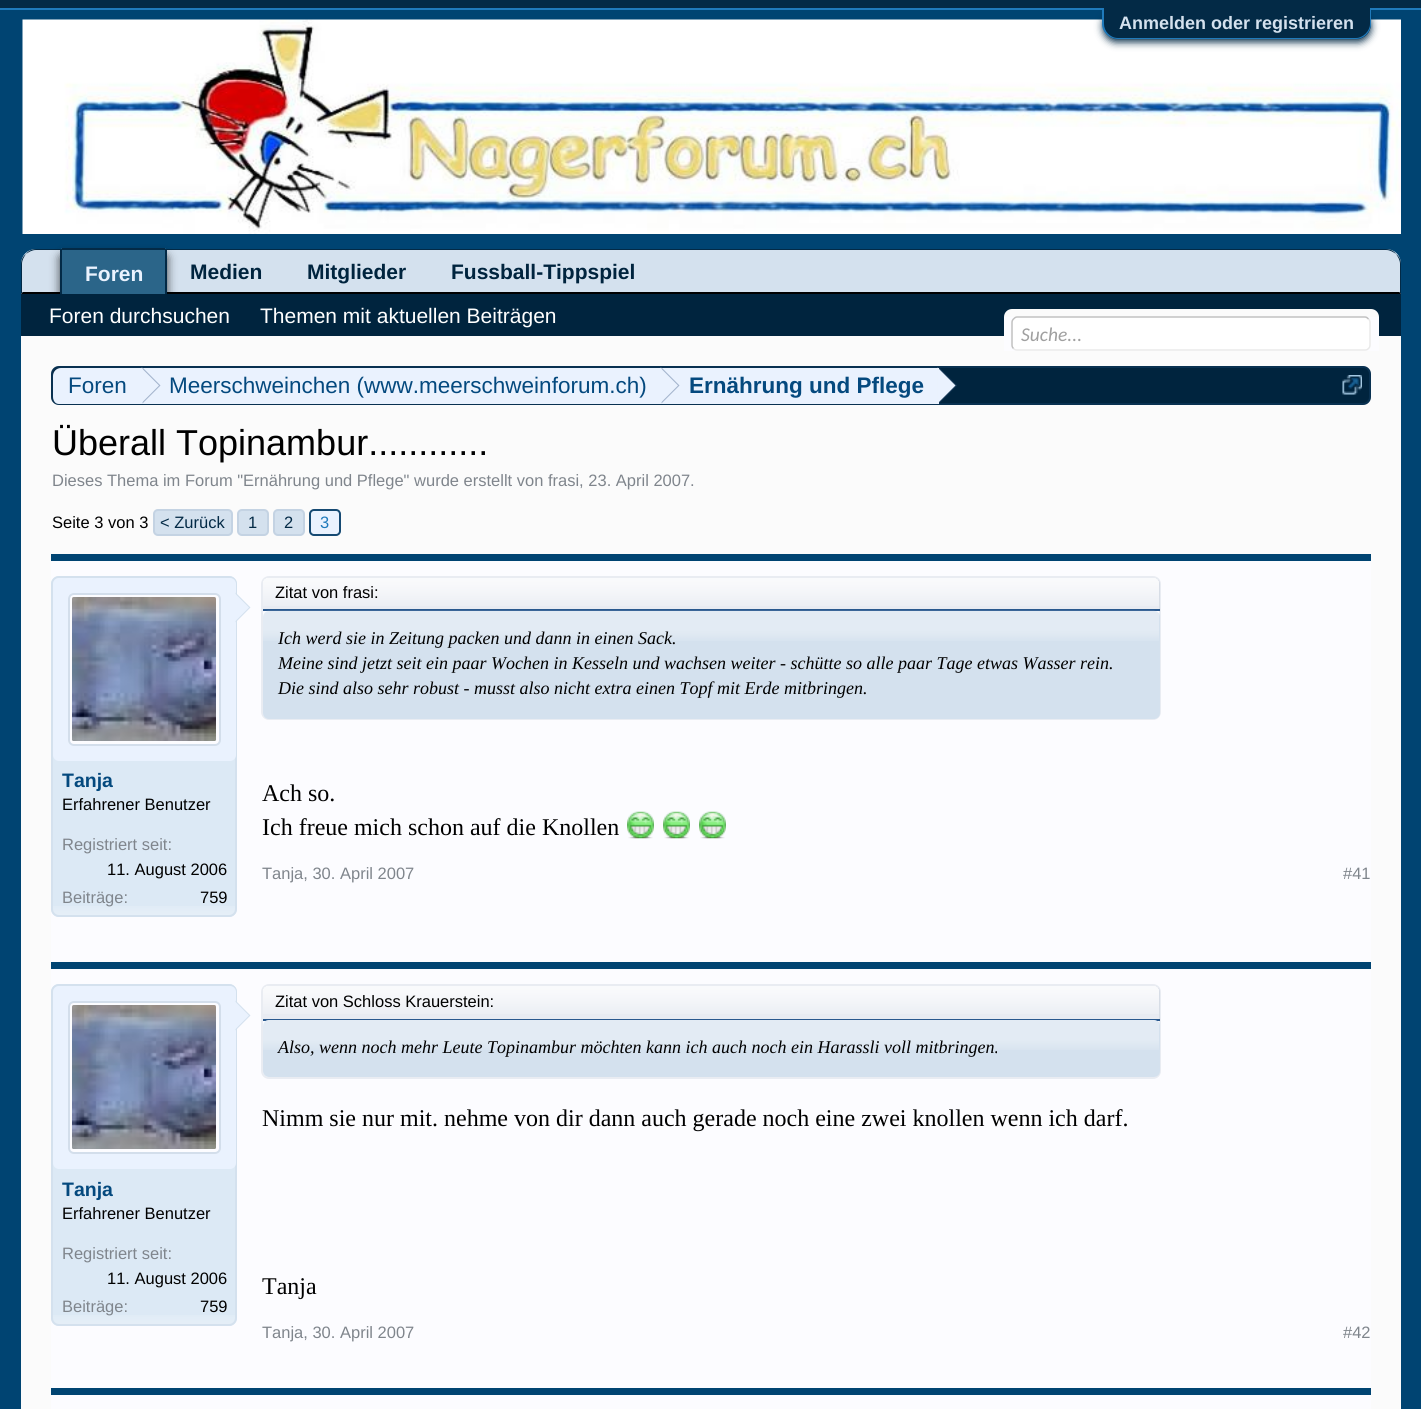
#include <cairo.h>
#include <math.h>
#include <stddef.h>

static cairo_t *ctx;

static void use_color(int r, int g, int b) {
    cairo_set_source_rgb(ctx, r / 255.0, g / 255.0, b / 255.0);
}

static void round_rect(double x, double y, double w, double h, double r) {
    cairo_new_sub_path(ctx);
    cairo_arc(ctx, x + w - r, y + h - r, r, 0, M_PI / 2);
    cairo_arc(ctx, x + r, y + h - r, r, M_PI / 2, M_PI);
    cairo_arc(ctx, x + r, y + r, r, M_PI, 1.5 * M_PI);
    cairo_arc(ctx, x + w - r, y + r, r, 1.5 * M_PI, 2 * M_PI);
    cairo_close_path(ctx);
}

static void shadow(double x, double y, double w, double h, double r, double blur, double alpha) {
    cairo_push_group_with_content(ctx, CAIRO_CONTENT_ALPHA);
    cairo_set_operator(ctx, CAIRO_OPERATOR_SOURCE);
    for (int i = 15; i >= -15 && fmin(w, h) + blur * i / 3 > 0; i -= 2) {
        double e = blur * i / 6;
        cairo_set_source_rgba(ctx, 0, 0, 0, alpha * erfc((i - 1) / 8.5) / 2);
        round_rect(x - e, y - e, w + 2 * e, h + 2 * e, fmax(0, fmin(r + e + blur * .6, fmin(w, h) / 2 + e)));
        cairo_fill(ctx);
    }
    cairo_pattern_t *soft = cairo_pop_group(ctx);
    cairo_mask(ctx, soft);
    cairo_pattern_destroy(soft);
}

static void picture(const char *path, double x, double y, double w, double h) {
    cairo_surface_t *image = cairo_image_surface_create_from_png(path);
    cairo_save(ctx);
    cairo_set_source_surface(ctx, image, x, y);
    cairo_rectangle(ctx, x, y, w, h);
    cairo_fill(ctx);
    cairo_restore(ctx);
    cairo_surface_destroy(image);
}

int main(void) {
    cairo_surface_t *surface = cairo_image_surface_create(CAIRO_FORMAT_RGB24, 1421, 1409);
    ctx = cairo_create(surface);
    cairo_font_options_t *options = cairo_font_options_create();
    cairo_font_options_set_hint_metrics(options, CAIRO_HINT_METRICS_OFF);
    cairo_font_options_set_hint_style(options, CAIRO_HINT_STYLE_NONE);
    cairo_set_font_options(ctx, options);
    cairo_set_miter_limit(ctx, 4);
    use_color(0, 68, 114);
    cairo_paint(ctx);
    use_color(3, 42, 70);
    cairo_rectangle(ctx, 0, 0, 1421, 8);
    cairo_fill(ctx);
    use_color(31, 122, 187);
    cairo_rectangle(ctx, 0, 8, 1421, 2);
    cairo_fill(ctx);
    picture("img1.png", 22, 19, 1379, 215);
    use_color(3, 42, 70);
    shadow(1103, 11, 268, 31, 15, 4, 1);
    use_color(3, 42, 70);
    cairo_new_path(ctx);
    cairo_move_to(ctx, 1103, 8);
    cairo_line_to(ctx, 1371, 8);
    cairo_line_to(ctx, 1371, 24);
    cairo_curve_to(ctx, 1371, 32.5, 1364.5, 39, 1356, 39);
    cairo_line_to(ctx, 1118, 39);
    cairo_curve_to(ctx, 1109.5, 39, 1103, 32.5, 1103, 24);
    cairo_close_path(ctx);
    cairo_fill(ctx);
    use_color(31, 122, 187);
    cairo_set_fill_rule(ctx, CAIRO_FILL_RULE_EVEN_ODD);
    cairo_new_path(ctx);
    cairo_move_to(ctx, 1102, 8);
    cairo_line_to(ctx, 1371, 8);
    cairo_line_to(ctx, 1371, 24);
    cairo_curve_to(ctx, 1371, 32, 1364, 39, 1356, 39);
    cairo_line_to(ctx, 1118, 39);
    cairo_curve_to(ctx, 1109, 39, 1102, 32, 1102, 24);
    cairo_close_path(ctx);
    cairo_move_to(ctx, 1104, 8);
    cairo_line_to(ctx, 1370, 8);
    cairo_line_to(ctx, 1370, 24);
    cairo_curve_to(ctx, 1370, 31, 1363, 38, 1356, 38);
    cairo_line_to(ctx, 1118, 38);
    cairo_curve_to(ctx, 1110, 38, 1104, 31, 1104, 24);
    cairo_close_path(ctx);
    cairo_fill(ctx);
    cairo_select_font_face(ctx, "Liberation Sans", CAIRO_FONT_SLANT_NORMAL, CAIRO_FONT_WEIGHT_BOLD);
    cairo_set_font_size(ctx, 18);
    use_color(212, 225, 238);
    cairo_move_to(ctx, 1119, 29);
    cairo_show_text(ctx, "Anmelden oder registrieren");
    cairo_new_path(ctx);
    cairo_move_to(ctx, 36, 249);
    cairo_line_to(ctx, 1386, 249);
    cairo_curve_to(ctx, 1394.5, 249, 1401, 255.5, 1401, 264);
    cairo_line_to(ctx, 1401, 294);
    cairo_line_to(ctx, 21, 294);
    cairo_line_to(ctx, 21, 264);
    cairo_curve_to(ctx, 21, 255.5, 27.5, 249, 36, 249);
    cairo_close_path(ctx);
    cairo_fill(ctx);
    use_color(3, 42, 70);
    cairo_set_fill_rule(ctx, CAIRO_FILL_RULE_WINDING);
    cairo_new_path(ctx);
    cairo_move_to(ctx, 36, 249);
    cairo_curve_to(ctx, 32, 249, 28, 251, 26, 254);
    cairo_curve_to(ctx, 29, 252, 32, 250, 36, 250);
    cairo_line_to(ctx, 1386, 250);
    cairo_curve_to(ctx, 1390, 250, 1393, 252, 1396, 254);
    cairo_curve_to(ctx, 1394, 251, 1390, 249, 1386, 249);
    cairo_close_path(ctx);
    cairo_fill(ctx);
    cairo_new_path(ctx);
    cairo_move_to(ctx, 1401, 294);
    cairo_line_to(ctx, 1401, 264);
    cairo_curve_to(ctx, 1401, 260, 1399, 256, 1396, 254);
    cairo_curve_to(ctx, 1398, 257, 1400, 260, 1400, 264);
    cairo_line_to(ctx, 1400, 292);
    cairo_line_to(ctx, 1399, 292);
    cairo_close_path(ctx);
    cairo_fill(ctx);
    use_color(0, 0, 0);
    cairo_new_path(ctx);
    cairo_move_to(ctx, 1401, 294);
    cairo_line_to(ctx, 1399, 292);
    cairo_line_to(ctx, 23, 292);
    cairo_line_to(ctx, 21, 294);
    cairo_close_path(ctx);
    cairo_fill(ctx);
    use_color(3, 42, 70);
    cairo_new_path(ctx);
    cairo_move_to(ctx, 21, 294);
    cairo_line_to(ctx, 23, 292);
    cairo_line_to(ctx, 22, 292);
    cairo_line_to(ctx, 22, 264);
    cairo_curve_to(ctx, 22, 260, 24, 257, 26, 254);
    cairo_curve_to(ctx, 23, 256, 21, 260, 21, 264);
    cairo_close_path(ctx);
    cairo_fill(ctx);
    cairo_set_font_size(ctx, 21);
    use_color(0, 36, 62);
    cairo_move_to(ctx, 190, 279);
    cairo_show_text(ctx, "Medien");
    cairo_move_to(ctx, 307, 279);
    cairo_show_text(ctx, "Mitglieder");
    cairo_move_to(ctx, 451, 279);
    cairo_show_text(ctx, "Fussball-Tippspiel");
    use_color(0, 0, 0);
    shadow(60, 255, 107, 47, 3, 5, 0.7);
    use_color(43, 101, 137);
    cairo_new_path(ctx);
    cairo_move_to(ctx, 63, 248);
    cairo_line_to(ctx, 164, 248);
    cairo_curve_to(ctx, 165.5, 248, 167, 249.5, 167, 251);
    cairo_line_to(ctx, 167, 294);
    cairo_line_to(ctx, 60, 294);
    cairo_line_to(ctx, 60, 251);
    cairo_curve_to(ctx, 60, 249.5, 61.5, 248, 63, 248);
    cairo_close_path(ctx);
    cairo_fill(ctx);
    use_color(3, 42, 70);
    cairo_rectangle(ctx, 62, 248, 103, 2);
    cairo_fill(ctx);
    cairo_rectangle(ctx, 165, 249, 2, 45);
    cairo_fill(ctx);
    cairo_rectangle(ctx, 60, 249, 2, 45);
    cairo_fill(ctx);
    use_color(234, 242, 254);
    cairo_move_to(ctx, 85, 281);
    cairo_show_text(ctx, "Foren");
    use_color(0, 36, 62);
    cairo_rectangle(ctx, 21, 294, 1380, 42);
    cairo_fill(ctx);
    cairo_select_font_face(ctx, "Liberation Sans", CAIRO_FONT_SLANT_NORMAL, CAIRO_FONT_WEIGHT_NORMAL);
    use_color(255, 255, 255);
    cairo_move_to(ctx, 49, 323);
    cairo_show_text(ctx, "Foren durchsuchen");
    cairo_move_to(ctx, 260, 323);
    cairo_show_text(ctx, "Themen mit aktuellen Beiträgen");
    use_color(251, 251, 251);
    cairo_rectangle(ctx, 21, 336, 1380, 1073);
    cairo_fill(ctx);
    round_rect(1004, 309, 375, 42, 8);
    cairo_fill(ctx);
    use_color(252, 252, 255);
    cairo_rectangle(ctx, 1004, 317, 375, 34);
    cairo_fill(ctx);
    use_color(255, 255, 255);
    round_rect(1011, 317, 360, 34, 6);
    cairo_fill(ctx);
    cairo_new_path(ctx);
    cairo_move_to(ctx, 1368.5, 319);
    cairo_curve_to(ctx, 1369.5, 320, 1370, 321, 1370, 322.5);
    cairo_line_to(ctx, 1370, 345);
    cairo_curve_to(ctx, 1370, 346.5, 1369.5, 347.5, 1368.5, 348.5);
    cairo_curve_to(ctx, 1367.5, 349.5, 1366.5, 350, 1365, 350);
    cairo_line_to(ctx, 1017, 350);
    cairo_curve_to(ctx, 1015.5, 350, 1014.5, 349.5, 1013.5, 348.5);
    use_color(233, 233, 233);
    cairo_set_line_width(ctx, 1.5);
    cairo_stroke(ctx);
    cairo_new_path(ctx);
    cairo_move_to(ctx, 1013.5, 348.5);
    cairo_curve_to(ctx, 1012.5, 347.5, 1012, 346.5, 1012, 345);
    cairo_line_to(ctx, 1012, 322.5);
    cairo_curve_to(ctx, 1012, 321, 1012.5, 320, 1013.5, 319);
    cairo_curve_to(ctx, 1014.5, 318, 1015.5, 317, 1017, 317);
    cairo_line_to(ctx, 1365, 317);
    cairo_curve_to(ctx, 1366.5, 317, 1367.5, 318, 1368.5, 319);
    use_color(192, 192, 192);
    cairo_stroke(ctx);
    cairo_select_font_face(ctx, "Carlito", CAIRO_FONT_SLANT_ITALIC, CAIRO_FONT_WEIGHT_NORMAL);
    cairo_set_font_size(ctx, 19.5);
    use_color(160, 160, 160);
    cairo_move_to(ctx, 1021, 341);
    cairo_show_text(ctx, "Suche...");
    use_color(0, 36, 62);
    round_rect(51, 366, 1320, 39, 8);
    cairo_fill(ctx);
    round_rect(52, 367, 1318, 37, 7);
    cairo_set_source_rgba(ctx, 0.192, 0.4, 0.62, 0.2);
    cairo_set_line_width(ctx, 2);
    cairo_stroke(ctx);
    cairo_save(ctx);
    round_rect(53, 368, 1317, 36, 6);
    cairo_clip(ctx);
    use_color(234, 242, 254);
    cairo_new_path(ctx);
    cairo_move_to(ctx, 61, 368);
    cairo_line_to(ctx, 143, 368);
    cairo_line_to(ctx, 143, 405);
    cairo_line_to(ctx, 61, 405);
    cairo_curve_to(ctx, 56.5, 405, 53, 401.5, 53, 397);
    cairo_line_to(ctx, 53, 376);
    cairo_curve_to(ctx, 53, 371.5, 56.5, 368, 61, 368);
    cairo_close_path(ctx);
    cairo_fill(ctx);
    cairo_restore(ctx);
    cairo_select_font_face(ctx, "Liberation Sans", CAIRO_FONT_SLANT_NORMAL, CAIRO_FONT_WEIGHT_NORMAL);
    cairo_set_font_size(ctx, 22.5);
    use_color(4, 73, 126);
    cairo_move_to(ctx, 68, 393);
    cairo_show_text(ctx, "Foren");
    use_color(234, 242, 254);
    cairo_rectangle(ctx, 143, 368, 796, 36);
    cairo_fill(ctx);
    use_color(164, 180, 204);
    cairo_new_path(ctx);
    cairo_move_to(ctx, 142.5, 403.5);
    cairo_line_to(ctx, 142.5, 367.5);
    cairo_line_to(ctx, 160.5, 385.5);
    cairo_close_path(ctx);
    cairo_fill(ctx);
    use_color(234, 242, 254);
    cairo_new_path(ctx);
    cairo_move_to(ctx, 141, 403.5);
    cairo_line_to(ctx, 141, 367.5);
    cairo_line_to(ctx, 159, 385.5);
    cairo_close_path(ctx);
    cairo_fill(ctx);
    use_color(4, 73, 126);
    cairo_move_to(ctx, 169, 393);
    cairo_show_text(ctx, "Meerschweinchen (www.meerschweinforum.ch)");
    use_color(164, 180, 204);
    cairo_new_path(ctx);
    cairo_move_to(ctx, 661.5, 403.5);
    cairo_line_to(ctx, 661.5, 367.5);
    cairo_line_to(ctx, 679.5, 385.5);
    cairo_close_path(ctx);
    cairo_fill(ctx);
    use_color(234, 242, 254);
    cairo_new_path(ctx);
    cairo_move_to(ctx, 660, 403.5);
    cairo_line_to(ctx, 660, 367.5);
    cairo_line_to(ctx, 678, 385.5);
    cairo_close_path(ctx);
    cairo_fill(ctx);
    cairo_select_font_face(ctx, "Liberation Sans", CAIRO_FONT_SLANT_NORMAL, CAIRO_FONT_WEIGHT_BOLD);
    use_color(4, 73, 126);
    cairo_move_to(ctx, 689, 393);
    cairo_show_text(ctx, "Ernährung und Pflege");
    use_color(23, 57, 88);
    cairo_new_path(ctx);
    cairo_move_to(ctx, 939, 403.5);
    cairo_line_to(ctx, 939, 367.5);
    cairo_line_to(ctx, 957, 385.5);
    cairo_close_path(ctx);
    cairo_fill(ctx);
    use_color(234, 242, 254);
    cairo_new_path(ctx);
    cairo_move_to(ctx, 937.5, 403.5);
    cairo_line_to(ctx, 937.5, 367.5);
    cairo_line_to(ctx, 955.5, 385.5);
    cairo_close_path(ctx);
    cairo_fill(ctx);
    picture("img2.png", 1342, 375, 20, 20);
    cairo_select_font_face(ctx, "Liberation Sans", CAIRO_FONT_SLANT_NORMAL, CAIRO_FONT_WEIGHT_NORMAL);
    cairo_set_font_size(ctx, 36);
    use_color(0, 0, 0);
    cairo_move_to(ctx, 52, 455);
    cairo_show_text(ctx, "Überall Topinambur............");
    cairo_set_font_size(ctx, 16.5);
    use_color(127, 133, 140);
    cairo_move_to(ctx, 52, 486);
    cairo_show_text(ctx, "Dieses Thema im Forum \"Ernährung und Pflege\" wurde erstellt von frasi, 23. April 2007.");
    use_color(0, 0, 0);
    cairo_move_to(ctx, 52, 528);
    cairo_show_text(ctx, "Seite 3 von 3");
    use_color(212, 225, 238);
    round_rect(153, 509, 80, 27, 5);
    cairo_fill(ctx);
    round_rect(154, 510, 78, 25, 4);
    cairo_set_source_rgba(ctx, 0.227, 0.345, 0.502, 0.1);
    cairo_stroke(ctx);
    use_color(3, 42, 70);
    cairo_move_to(ctx, 160, 528);
    cairo_show_text(ctx, "< Zurück");
    use_color(212, 225, 238);
    round_rect(237, 509, 32, 27, 5);
    cairo_fill(ctx);
    round_rect(238, 510, 30, 25, 4);
    cairo_set_source_rgba(ctx, 0.227, 0.345, 0.502, 0.1);
    cairo_stroke(ctx);
    use_color(3, 42, 70);
    cairo_move_to(ctx, 248, 528);
    cairo_show_text(ctx, "1");
    use_color(212, 225, 238);
    round_rect(273, 509, 32, 27, 5);
    cairo_fill(ctx);
    round_rect(274, 510, 30, 25, 4);
    cairo_set_source_rgba(ctx, 0.227, 0.345, 0.502, 0.1);
    cairo_stroke(ctx);
    use_color(3, 42, 70);
    cairo_move_to(ctx, 284, 528);
    cairo_show_text(ctx, "2");
    use_color(234, 242, 254);
    round_rect(310, 510, 30, 25, 4);
    cairo_fill_preserve(ctx);
    use_color(22, 74, 115);
    cairo_stroke(ctx);
    use_color(31, 122, 187);
    cairo_move_to(ctx, 320, 528);
    cairo_show_text(ctx, "3");
    use_color(252, 252, 255);
    cairo_rectangle(ctx, 51, 561, 1320, 848);
    cairo_fill(ctx);
    use_color(0, 68, 114);
    cairo_rectangle(ctx, 51, 554, 1320, 7);
    cairo_fill(ctx);
    use_color(220, 233, 245);
    round_rect(51, 576, 186, 341, 8);
    cairo_fill(ctx);
    picture("img3.png", 51, 906, 186, 9);
    round_rect(52, 577, 184, 339, 7);
    use_color(212, 225, 238);
    cairo_stroke(ctx);
    use_color(234, 242, 254);
    round_rect(53, 578, 183, 183, 6);
    cairo_fill(ctx);
    use_color(252, 252, 255);
    round_rect(68, 593, 153, 153, 6);
    cairo_fill(ctx);
    round_rect(69, 594, 151, 151, 5);
    cairo_set_source_rgba(ctx, 0.192, 0.4, 0.62, 0.2);
    cairo_stroke(ctx);
    picture("img4.png", 72, 597, 144, 144);
    use_color(212, 225, 238);
    cairo_new_path(ctx);
    cairo_move_to(ctx, 235.5, 622.5);
    cairo_line_to(ctx, 235.5, 592.5);
    cairo_line_to(ctx, 250.5, 607.5);
    cairo_close_path(ctx);
    cairo_fill(ctx);
    use_color(234, 242, 254);
    cairo_new_path(ctx);
    cairo_move_to(ctx, 234, 622.5);
    cairo_line_to(ctx, 234, 592.5);
    cairo_line_to(ctx, 249, 607.5);
    cairo_close_path(ctx);
    cairo_fill(ctx);
    cairo_select_font_face(ctx, "Liberation Sans", CAIRO_FONT_SLANT_NORMAL, CAIRO_FONT_WEIGHT_BOLD);
    cairo_set_font_size(ctx, 19.5);
    use_color(4, 73, 126);
    cairo_move_to(ctx, 62, 787);
    cairo_show_text(ctx, "Tanja");
    cairo_select_font_face(ctx, "Liberation Sans", CAIRO_FONT_SLANT_NORMAL, CAIRO_FONT_WEIGHT_NORMAL);
    cairo_set_font_size(ctx, 16.5);
    use_color(0, 0, 0);
    cairo_move_to(ctx, 62, 810);
    cairo_show_text(ctx, "Erfahrener Benutzer");
    use_color(127, 133, 140);
    cairo_move_to(ctx, 62, 850);
    cairo_show_text(ctx, "Registriert seit:");
    use_color(0, 0, 0);
    cairo_move_to(ctx, 107, 875);
    cairo_show_text(ctx, "11. August 2006");
    use_color(127, 133, 140);
    cairo_move_to(ctx, 62, 903);
    cairo_show_text(ctx, "Beiträge:");
    use_color(0, 0, 0);
    cairo_move_to(ctx, 200, 903);
    cairo_show_text(ctx, "759");
    round_rect(262, 577, 898, 142, 7);
    use_color(233, 236, 242);
    cairo_stroke(ctx);
    cairo_set_source_rgba(ctx, 0.227, 0.345, 0.502, 0.1);
    cairo_new_path(ctx);
    cairo_move_to(ctx, 269, 578);
    cairo_line_to(ctx, 1154, 578);
    cairo_curve_to(ctx, 1157.5, 578, 1160, 580.5, 1160, 584);
    cairo_line_to(ctx, 1160, 611);
    cairo_line_to(ctx, 263, 611);
    cairo_line_to(ctx, 263, 584);
    cairo_curve_to(ctx, 263, 580.5, 265.5, 578, 269, 578);
    cairo_close_path(ctx);
    cairo_fill(ctx);
    picture("img5.png", 263, 578, 896, 28);
    use_color(41, 88, 142);
    cairo_rectangle(ctx, 263, 609, 897, 2);
    cairo_fill(ctx);
    use_color(0, 0, 0);
    cairo_move_to(ctx, 275, 598);
    cairo_show_text(ctx, "Zitat von frasi:");
    use_color(212, 225, 238);
    round_rect(263, 611, 897, 108, 6);
    cairo_fill(ctx);
    picture("img6.png", 263, 610, 896, 31);
    cairo_select_font_face(ctx, "Liberation Serif", CAIRO_FONT_SLANT_ITALIC, CAIRO_FONT_WEIGHT_NORMAL);
    cairo_set_font_size(ctx, 18);
    use_color(0, 0, 0);
    cairo_move_to(ctx, 278, 644);
    cairo_show_text(ctx, "Ich werd sie in Zeitung packen und dann in einen Sack.");
    cairo_move_to(ctx, 278, 669);
    cairo_show_text(ctx, "Meine sind jetzt seit ein paar Wochen in Kesseln und wachsen weiter - schütte so alle paar Tage etwas Wasser rein.");
    cairo_move_to(ctx, 278, 694);
    cairo_show_text(ctx, "Die sind also sehr robust - musst also nicht extra einen Topf mit Erde mitbringen.");
    cairo_select_font_face(ctx, "Liberation Serif", CAIRO_FONT_SLANT_NORMAL, CAIRO_FONT_WEIGHT_NORMAL);
    cairo_set_font_size(ctx, 24);
    cairo_move_to(ctx, 262, 801);
    cairo_show_text(ctx, "Ach so.");
    cairo_move_to(ctx, 262, 835);
    cairo_show_text(ctx, "Ich freue mich schon auf die Knollen");
    picture("img7.png", 627, 811, 27, 28);
    picture("img7.png", 663, 811, 27, 28);
    picture("img7.png", 699, 811, 27, 28);
    cairo_select_font_face(ctx, "Liberation Sans", CAIRO_FONT_SLANT_NORMAL, CAIRO_FONT_WEIGHT_NORMAL);
    cairo_set_font_size(ctx, 16.5);
    use_color(127, 133, 140);
    cairo_move_to(ctx, 262, 879);
    cairo_show_text(ctx, "Tanja, 30. April 2007");
    cairo_move_to(ctx, 1343, 879);
    cairo_show_text(ctx, "#41");
    use_color(0, 68, 114);
    cairo_rectangle(ctx, 51, 962, 1320, 7);
    cairo_fill(ctx);
    use_color(220, 233, 245);
    round_rect(51, 984, 186, 342, 8);
    cairo_fill(ctx);
    picture("img8.png", 51, 1315, 186, 10);
    round_rect(52, 985, 184, 340, 7);
    use_color(212, 225, 238);
    cairo_stroke(ctx);
    use_color(234, 242, 254);
    round_rect(53, 986, 183, 183, 6);
    cairo_fill(ctx);
    use_color(252, 252, 255);
    round_rect(68, 1001, 153, 153, 6);
    cairo_fill(ctx);
    round_rect(69, 1002, 151, 151, 5);
    cairo_set_source_rgba(ctx, 0.192, 0.4, 0.62, 0.2);
    cairo_stroke(ctx);
    picture("img4.png", 72, 1005, 144, 144);
    use_color(212, 225, 238);
    cairo_new_path(ctx);
    cairo_move_to(ctx, 235.5, 1030.5);
    cairo_line_to(ctx, 235.5, 1000.5);
    cairo_line_to(ctx, 250.5, 1015.5);
    cairo_close_path(ctx);
    cairo_fill(ctx);
    use_color(234, 242, 254);
    cairo_new_path(ctx);
    cairo_move_to(ctx, 234, 1030.5);
    cairo_line_to(ctx, 234, 1000.5);
    cairo_line_to(ctx, 249, 1015.5);
    cairo_close_path(ctx);
    cairo_fill(ctx);
    cairo_select_font_face(ctx, "Liberation Sans", CAIRO_FONT_SLANT_NORMAL, CAIRO_FONT_WEIGHT_BOLD);
    cairo_set_font_size(ctx, 19.5);
    use_color(4, 73, 126);
    cairo_move_to(ctx, 62, 1196);
    cairo_show_text(ctx, "Tanja");
    cairo_select_font_face(ctx, "Liberation Sans", CAIRO_FONT_SLANT_NORMAL, CAIRO_FONT_WEIGHT_NORMAL);
    cairo_set_font_size(ctx, 16.5);
    use_color(0, 0, 0);
    cairo_move_to(ctx, 62, 1219);
    cairo_show_text(ctx, "Erfahrener Benutzer");
    use_color(127, 133, 140);
    cairo_move_to(ctx, 62, 1259);
    cairo_show_text(ctx, "Registriert seit:");
    use_color(0, 0, 0);
    cairo_move_to(ctx, 107, 1284);
    cairo_show_text(ctx, "11. August 2006");
    use_color(127, 133, 140);
    cairo_move_to(ctx, 62, 1312);
    cairo_show_text(ctx, "Beiträge:");
    use_color(0, 0, 0);
    cairo_move_to(ctx, 200, 1312);
    cairo_show_text(ctx, "759");
    round_rect(262, 985, 898, 93, 7);
    use_color(233, 236, 242);
    cairo_stroke(ctx);
    cairo_set_source_rgba(ctx, 0.227, 0.345, 0.502, 0.1);
    cairo_new_path(ctx);
    cairo_move_to(ctx, 269, 986);
    cairo_line_to(ctx, 1154, 986);
    cairo_curve_to(ctx, 1157.5, 986, 1160, 988.5, 1160, 992);
    cairo_line_to(ctx, 1160, 1020);
    cairo_line_to(ctx, 263, 1020);
    cairo_line_to(ctx, 263, 992);
    cairo_curve_to(ctx, 263, 988.5, 265.5, 986, 269, 986);
    cairo_close_path(ctx);
    cairo_fill(ctx);
    picture("img9.png", 263, 986, 896, 28);
    use_color(41, 88, 142);
    cairo_rectangle(ctx, 263, 1019, 897, 2);
    cairo_fill(ctx);
    use_color(0, 0, 0);
    cairo_move_to(ctx, 275, 1007);
    cairo_show_text(ctx, "Zitat von Schloss Krauerstein:");
    use_color(212, 225, 238);
    round_rect(263, 1020, 897, 57, 6);
    cairo_fill(ctx);
    picture("img10.png", 263, 1020, 896, 30);
    cairo_select_font_face(ctx, "Liberation Serif", CAIRO_FONT_SLANT_ITALIC, CAIRO_FONT_WEIGHT_NORMAL);
    cairo_set_font_size(ctx, 18);
    use_color(0, 0, 0);
    cairo_move_to(ctx, 278, 1053);
    cairo_show_text(ctx, "Also, wenn noch mehr Leute Topinambur möchten kann ich auch noch ein Harassli voll mitbringen.");
    cairo_select_font_face(ctx, "Liberation Serif", CAIRO_FONT_SLANT_NORMAL, CAIRO_FONT_WEIGHT_NORMAL);
    cairo_set_font_size(ctx, 24);
    cairo_move_to(ctx, 262, 1126);
    cairo_show_text(ctx, "Nimm sie nur mit. nehme von dir dann auch gerade noch eine zwei knollen wenn ich darf.");
    cairo_move_to(ctx, 262, 1294);
    cairo_show_text(ctx, "Tanja");
    cairo_select_font_face(ctx, "Liberation Sans", CAIRO_FONT_SLANT_NORMAL, CAIRO_FONT_WEIGHT_NORMAL);
    cairo_set_font_size(ctx, 16.5);
    use_color(127, 133, 140);
    cairo_move_to(ctx, 262, 1338);
    cairo_show_text(ctx, "Tanja, 30. April 2007");
    cairo_move_to(ctx, 1343, 1338);
    cairo_show_text(ctx, "#42");
    use_color(0, 68, 114);
    cairo_rectangle(ctx, 51, 1388, 1320, 7);
    cairo_fill(ctx);
    cairo_surface_write_to_png(surface, "result.png");
    cairo_font_options_destroy(options);
    cairo_destroy(ctx);
    cairo_surface_destroy(surface);
    return 0;
}
